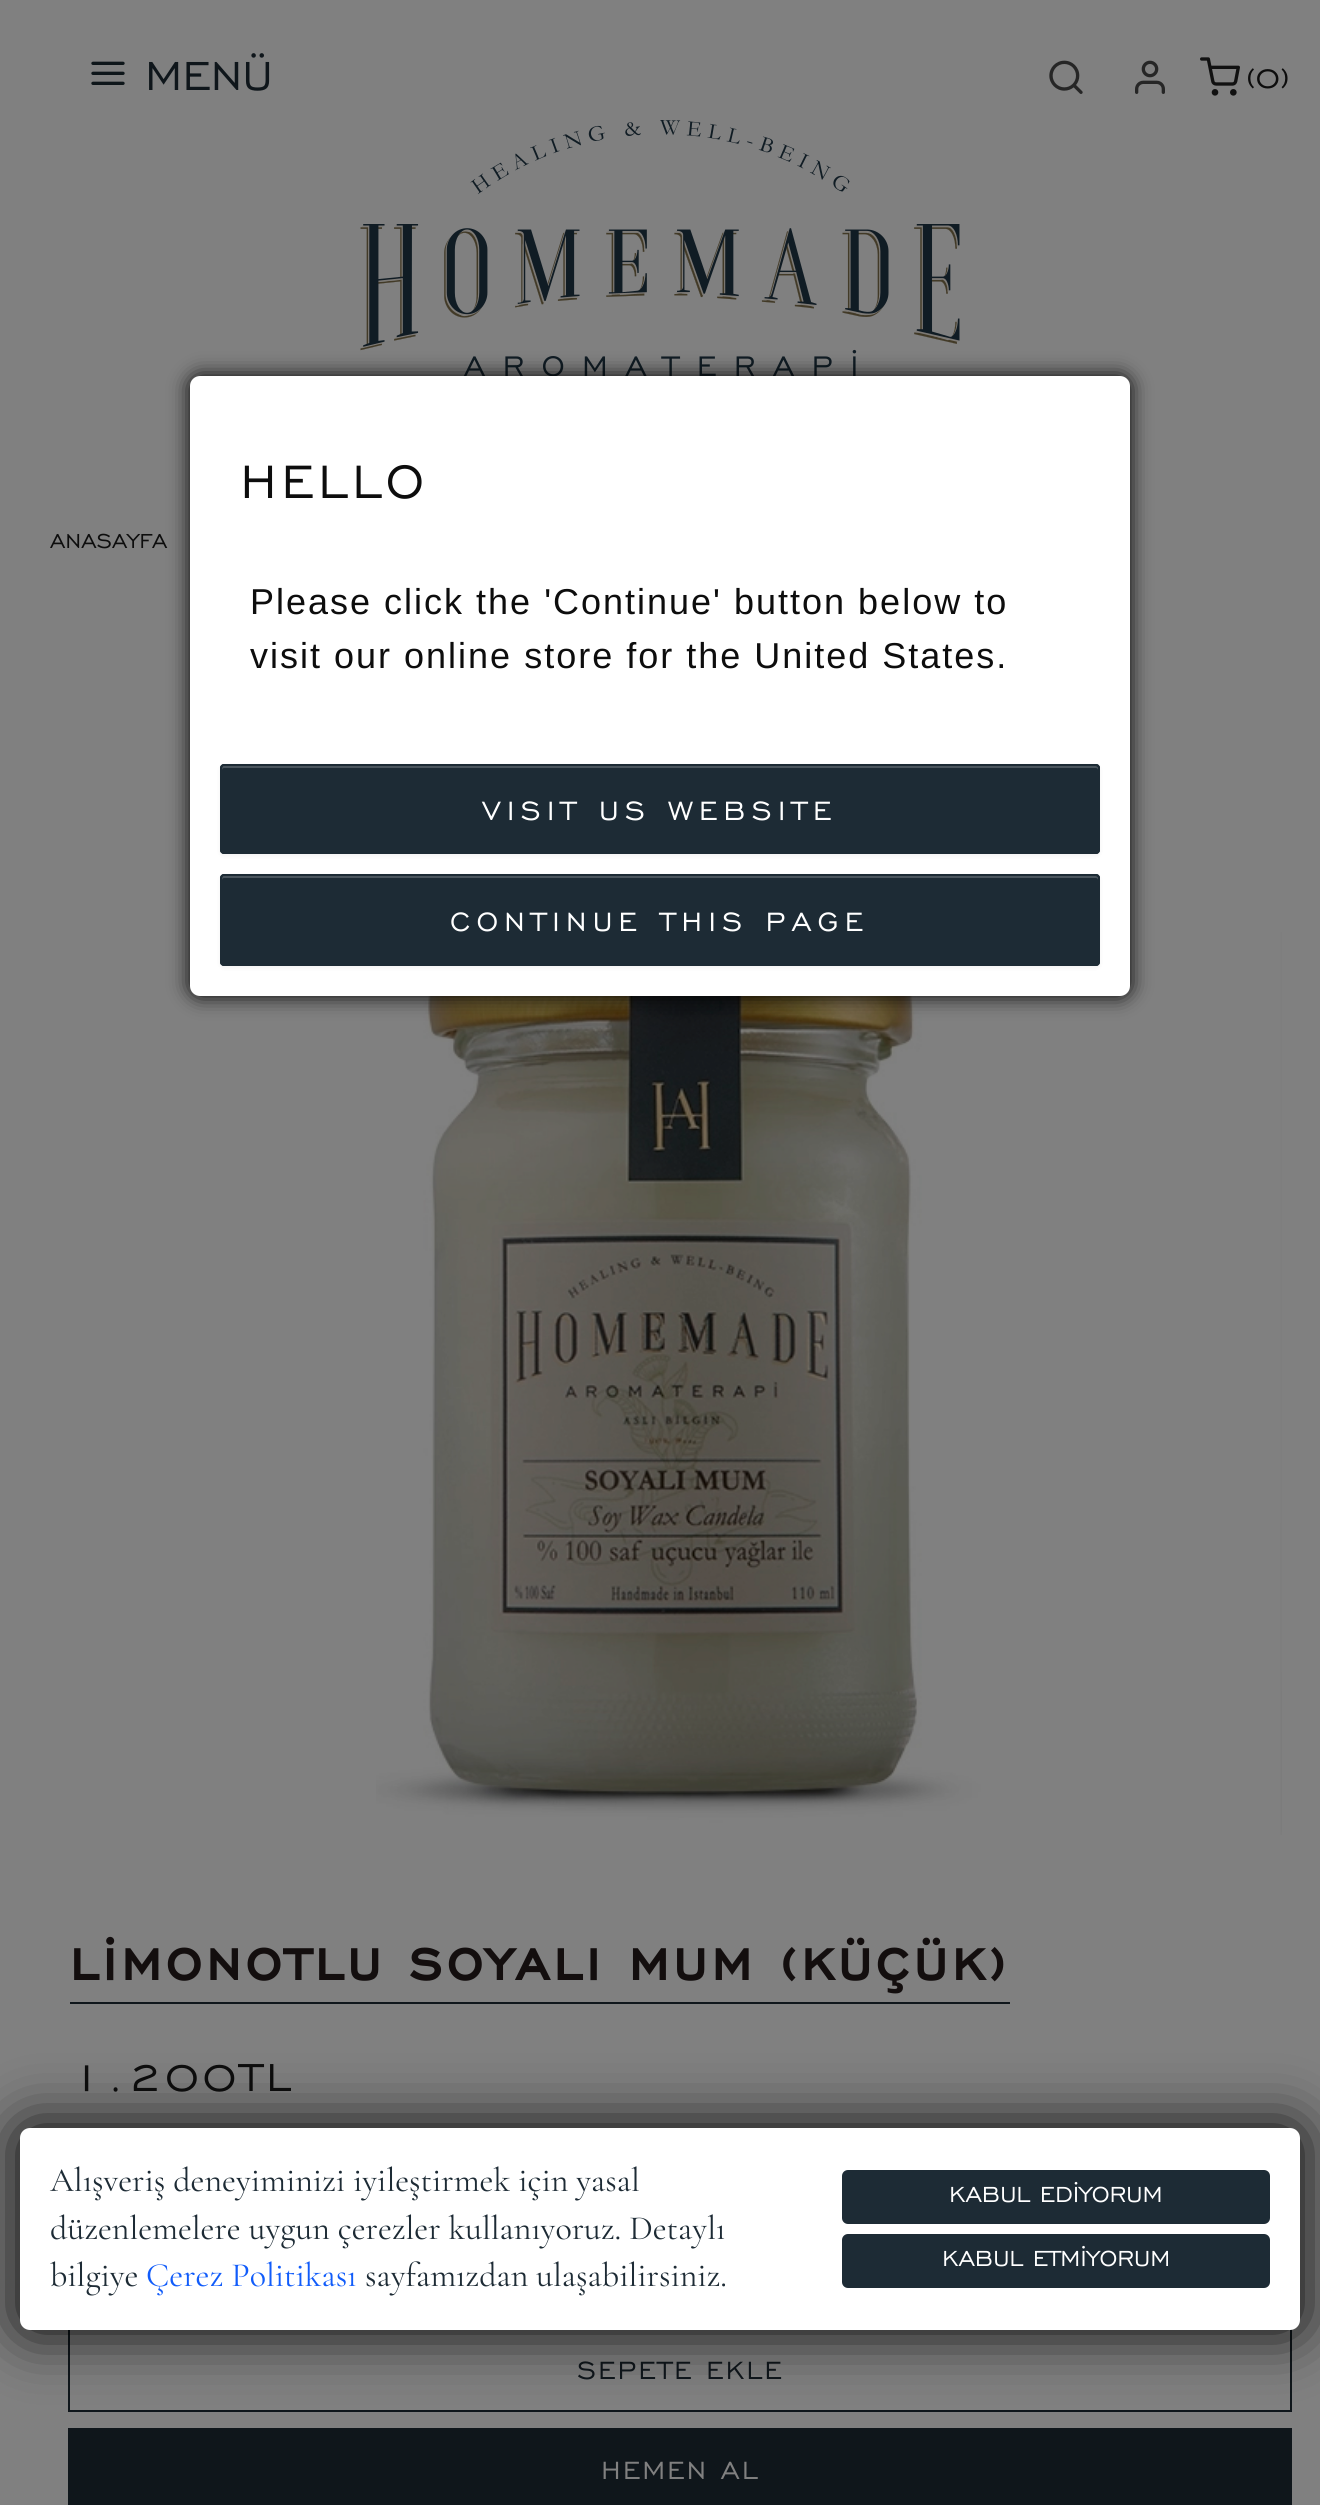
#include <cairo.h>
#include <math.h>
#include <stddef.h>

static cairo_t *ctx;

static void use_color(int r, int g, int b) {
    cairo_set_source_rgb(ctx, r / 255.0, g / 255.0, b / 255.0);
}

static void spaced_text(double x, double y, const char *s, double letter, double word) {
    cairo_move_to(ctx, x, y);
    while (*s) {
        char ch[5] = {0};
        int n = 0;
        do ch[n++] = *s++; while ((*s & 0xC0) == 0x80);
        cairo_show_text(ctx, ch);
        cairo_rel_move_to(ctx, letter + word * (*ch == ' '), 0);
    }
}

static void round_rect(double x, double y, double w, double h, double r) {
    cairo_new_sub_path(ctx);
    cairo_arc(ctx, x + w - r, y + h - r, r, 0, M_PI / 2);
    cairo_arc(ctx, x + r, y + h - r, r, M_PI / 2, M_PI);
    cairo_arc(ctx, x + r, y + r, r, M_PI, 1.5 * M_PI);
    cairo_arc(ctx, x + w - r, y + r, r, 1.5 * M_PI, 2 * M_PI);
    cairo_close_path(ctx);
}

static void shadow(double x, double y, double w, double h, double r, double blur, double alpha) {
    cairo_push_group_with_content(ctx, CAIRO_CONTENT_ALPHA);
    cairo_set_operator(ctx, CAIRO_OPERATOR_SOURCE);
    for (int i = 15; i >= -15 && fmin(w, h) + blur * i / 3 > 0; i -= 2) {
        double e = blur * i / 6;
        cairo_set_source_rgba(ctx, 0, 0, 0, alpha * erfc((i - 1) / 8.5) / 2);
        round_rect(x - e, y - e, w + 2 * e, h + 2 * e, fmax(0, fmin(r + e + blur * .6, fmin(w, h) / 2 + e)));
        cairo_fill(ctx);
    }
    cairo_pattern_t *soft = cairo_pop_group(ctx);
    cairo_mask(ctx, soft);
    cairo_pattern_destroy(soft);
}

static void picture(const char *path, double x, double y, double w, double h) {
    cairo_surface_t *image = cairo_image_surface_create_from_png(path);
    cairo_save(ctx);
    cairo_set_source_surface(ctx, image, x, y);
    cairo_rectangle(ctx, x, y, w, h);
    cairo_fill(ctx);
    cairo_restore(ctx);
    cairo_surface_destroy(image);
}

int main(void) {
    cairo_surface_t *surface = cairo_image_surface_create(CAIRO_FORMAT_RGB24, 1320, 2505);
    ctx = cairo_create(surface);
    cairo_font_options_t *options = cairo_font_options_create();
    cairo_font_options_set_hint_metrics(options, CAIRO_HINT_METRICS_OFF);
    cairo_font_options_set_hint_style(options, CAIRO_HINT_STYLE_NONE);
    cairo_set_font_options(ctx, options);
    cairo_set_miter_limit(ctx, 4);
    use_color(128, 128, 128);
    cairo_paint(ctx);
    picture("img1.png", 91, 61, 34, 24);
    cairo_select_font_face(ctx, "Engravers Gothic", CAIRO_FONT_SLANT_NORMAL, CAIRO_FONT_WEIGHT_NORMAL);
    cairo_set_font_size(ctx, 52);
    use_color(15, 22, 27);
    cairo_move_to(ctx, 145, 90);
    cairo_show_text(ctx, "MENÜ");
    picture("img2.png", 1049, 60, 34, 34);
    picture("img3.png", 1135, 60, 30, 34);
    picture("img4.png", 1200, 57, 40, 39);
    cairo_set_font_size(ctx, 36);
    use_color(13, 13, 13);
    cairo_move_to(ctx, 1246, 88);
    cairo_show_text(ctx, "(0)");
    picture("img5.png", 360, 120, 600, 256);
    picture("img6.png", 376, 932, 906, 903);
    use_color(0, 0, 0);
    shadow(190, 376, 940, 620, 10, 10, 1);
    use_color(255, 255, 255);
    round_rect(190, 376, 940, 620, 10);
    cairo_fill(ctx);
    cairo_set_font_size(ctx, 60);
    use_color(13, 13, 13);
    spaced_text(240, 498, "HELLO", 4, 0);
    cairo_select_font_face(ctx, "Liberation Sans", CAIRO_FONT_SLANT_NORMAL, CAIRO_FONT_WEIGHT_NORMAL);
    cairo_set_font_size(ctx, 36);
    spaced_text(250, 614, "Please click the 'Continue' button below to", 2, 0);
    spaced_text(250, 668, "visit our online store for the United States.", 2, 0);
    use_color(0, 0, 0);
    shadow(220, 766, 880, 90, 4, 2, 0.05);
    use_color(29, 43, 53);
    round_rect(220, 764, 880, 90, 4);
    cairo_fill(ctx);
    use_color(74, 85, 93);
    cairo_new_path(ctx);
    cairo_move_to(ctx, 224, 768);
    cairo_line_to(ctx, 1096, 768);
    cairo_curve_to(ctx, 1097, 768, 1098, 769, 1098, 770);
    cairo_line_to(ctx, 1098, 767);
    cairo_line_to(ctx, 1096, 766);
    cairo_line_to(ctx, 223, 766);
    cairo_curve_to(ctx, 222, 767, 222, 769, 222, 770);
    cairo_curve_to(ctx, 222, 769, 223, 768, 224, 768);
    cairo_close_path(ctx);
    cairo_fill(ctx);
    round_rect(221, 765, 878, 88, 3);
    use_color(29, 43, 53);
    cairo_stroke(ctx);
    cairo_select_font_face(ctx, "Engravers Gothic", CAIRO_FONT_SLANT_NORMAL, CAIRO_FONT_WEIGHT_NORMAL);
    cairo_set_font_size(ctx, 34);
    use_color(255, 255, 255);
    spaced_text(482, 820, "VISIT US WEBSITE", 6, 0);
    use_color(0, 0, 0);
    shadow(220, 876, 880, 92, 4, 2, 0.05);
    use_color(29, 43, 53);
    round_rect(220, 874, 880, 92, 4);
    cairo_fill(ctx);
    use_color(74, 85, 93);
    cairo_new_path(ctx);
    cairo_move_to(ctx, 224, 878);
    cairo_line_to(ctx, 1096, 878);
    cairo_curve_to(ctx, 1097, 878, 1098, 879, 1098, 880);
    cairo_line_to(ctx, 1098, 877);
    cairo_line_to(ctx, 1096, 876);
    cairo_line_to(ctx, 223, 876);
    cairo_curve_to(ctx, 222, 877, 222, 879, 222, 880);
    cairo_curve_to(ctx, 222, 879, 223, 878, 224, 878);
    cairo_close_path(ctx);
    cairo_fill(ctx);
    round_rect(221, 875, 878, 90, 3);
    use_color(29, 43, 53);
    cairo_stroke(ctx);
    use_color(255, 255, 255);
    spaced_text(450, 931, "CONTINUE THIS PAGE", 6, 0);
    cairo_set_font_size(ctx, 26);
    use_color(13, 13, 13);
    cairo_move_to(ctx, 50, 548);
    cairo_show_text(ctx, "ANASAYFA");
    cairo_select_font_face(ctx, "Engravers Gothic", CAIRO_FONT_SLANT_NORMAL, CAIRO_FONT_WEIGHT_BOLD);
    cairo_set_font_size(ctx, 60);
    use_color(19, 14, 14);
    spaced_text(70, 1980, "LİMONOTLU SOYALI MUM (KÜÇÜK)", 4, 0);
    use_color(15, 22, 27);
    cairo_rectangle(ctx, 70, 2002, 940, 2);
    cairo_fill(ctx);
    cairo_select_font_face(ctx, "Engravers Gothic", CAIRO_FONT_SLANT_NORMAL, CAIRO_FONT_WEIGHT_NORMAL);
    cairo_set_font_size(ctx, 50);
    use_color(13, 13, 13);
    spaced_text(70, 2091, "1.200TL", 4, 0);
    cairo_rectangle(ctx, 69, 2329, 1222, 82);
    use_color(15, 22, 27);
    cairo_stroke(ctx);
    cairo_set_font_size(ctx, 32);
    spaced_text(577, 2379, "SEPETE EKLE", 2, 0);
    cairo_rectangle(ctx, 69, 2429, 1222, 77);
    cairo_stroke(ctx);
    cairo_rectangle(ctx, 70, 2430, 1220, 75);
    cairo_fill(ctx);
    use_color(128, 128, 128);
    spaced_text(601, 2479, "HEMEN AL", 2, 0);
    use_color(0, 0, 0);
    shadow(20, 2128, 1280, 202, 10, 30, 1);
    use_color(255, 255, 255);
    round_rect(20, 2128, 1280, 202, 10);
    cairo_fill(ctx);
    cairo_select_font_face(ctx, "Cormorant Garamond", CAIRO_FONT_SLANT_NORMAL, CAIRO_FONT_WEIGHT_NORMAL);
    cairo_set_font_size(ctx, 34);
    use_color(29, 43, 53);
    cairo_move_to(ctx, 50, 2191);
    cairo_show_text(ctx, "Alışveriş deneyiminizi iyileştirmek için yasal");
    cairo_move_to(ctx, 50, 2239);
    cairo_show_text(ctx, "düzenlemelere uygun çerezler kullanıyoruz. Detaylı");
    cairo_move_to(ctx, 50, 2286);
    cairo_show_text(ctx, "bilgiye");
    use_color(17, 92, 250);
    cairo_move_to(ctx, 146, 2286);
    cairo_show_text(ctx, "Çerez Politikası");
    use_color(29, 43, 53);
    cairo_move_to(ctx, 365, 2286);
    cairo_show_text(ctx, "sayfamızdan ulaşabilirsiniz.");
    round_rect(843, 2171, 426, 52, 5);
    cairo_fill_preserve(ctx);
    cairo_stroke(ctx);
    cairo_select_font_face(ctx, "Engravers Gothic", CAIRO_FONT_SLANT_NORMAL, CAIRO_FONT_WEIGHT_NORMAL);
    cairo_set_font_size(ctx, 28);
    use_color(255, 255, 255);
    cairo_move_to(ctx, 949, 2202);
    cairo_show_text(ctx, "KABUL EDİYORUM");
    use_color(29, 43, 53);
    round_rect(843, 2235, 426, 52, 5);
    cairo_fill_preserve(ctx);
    cairo_stroke(ctx);
    use_color(255, 255, 255);
    cairo_move_to(ctx, 942, 2266);
    cairo_show_text(ctx, "KABUL ETMİYORUM");
    cairo_surface_write_to_png(surface, "result.png");
    cairo_font_options_destroy(options);
    cairo_destroy(ctx);
    cairo_surface_destroy(surface);
    return 0;
}
